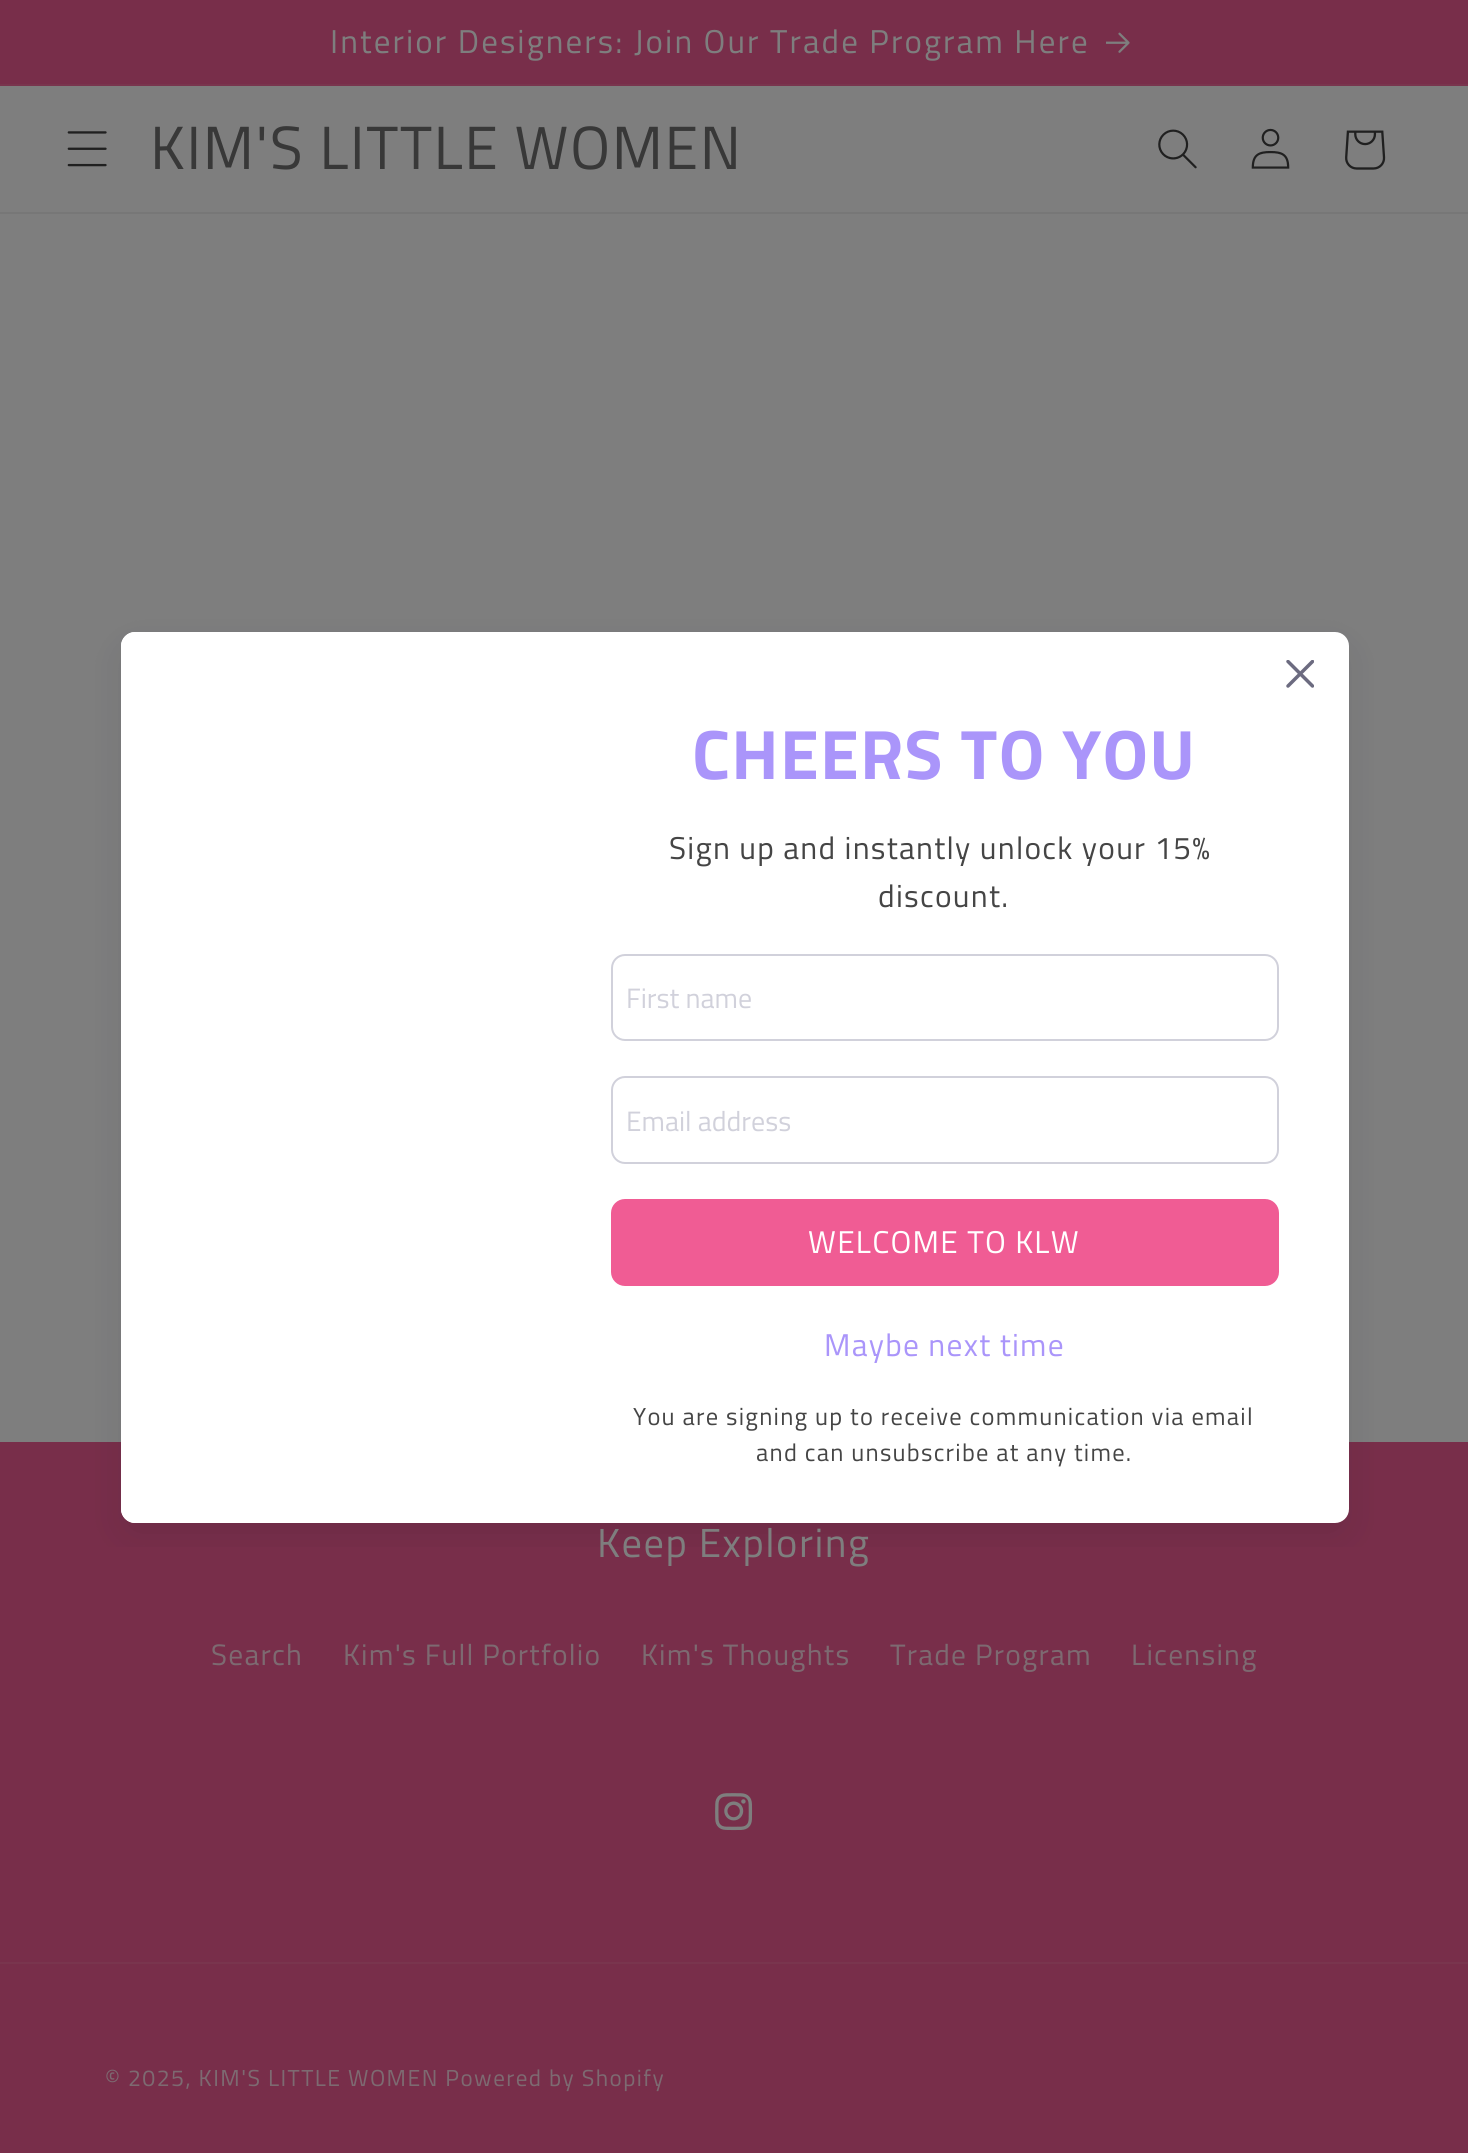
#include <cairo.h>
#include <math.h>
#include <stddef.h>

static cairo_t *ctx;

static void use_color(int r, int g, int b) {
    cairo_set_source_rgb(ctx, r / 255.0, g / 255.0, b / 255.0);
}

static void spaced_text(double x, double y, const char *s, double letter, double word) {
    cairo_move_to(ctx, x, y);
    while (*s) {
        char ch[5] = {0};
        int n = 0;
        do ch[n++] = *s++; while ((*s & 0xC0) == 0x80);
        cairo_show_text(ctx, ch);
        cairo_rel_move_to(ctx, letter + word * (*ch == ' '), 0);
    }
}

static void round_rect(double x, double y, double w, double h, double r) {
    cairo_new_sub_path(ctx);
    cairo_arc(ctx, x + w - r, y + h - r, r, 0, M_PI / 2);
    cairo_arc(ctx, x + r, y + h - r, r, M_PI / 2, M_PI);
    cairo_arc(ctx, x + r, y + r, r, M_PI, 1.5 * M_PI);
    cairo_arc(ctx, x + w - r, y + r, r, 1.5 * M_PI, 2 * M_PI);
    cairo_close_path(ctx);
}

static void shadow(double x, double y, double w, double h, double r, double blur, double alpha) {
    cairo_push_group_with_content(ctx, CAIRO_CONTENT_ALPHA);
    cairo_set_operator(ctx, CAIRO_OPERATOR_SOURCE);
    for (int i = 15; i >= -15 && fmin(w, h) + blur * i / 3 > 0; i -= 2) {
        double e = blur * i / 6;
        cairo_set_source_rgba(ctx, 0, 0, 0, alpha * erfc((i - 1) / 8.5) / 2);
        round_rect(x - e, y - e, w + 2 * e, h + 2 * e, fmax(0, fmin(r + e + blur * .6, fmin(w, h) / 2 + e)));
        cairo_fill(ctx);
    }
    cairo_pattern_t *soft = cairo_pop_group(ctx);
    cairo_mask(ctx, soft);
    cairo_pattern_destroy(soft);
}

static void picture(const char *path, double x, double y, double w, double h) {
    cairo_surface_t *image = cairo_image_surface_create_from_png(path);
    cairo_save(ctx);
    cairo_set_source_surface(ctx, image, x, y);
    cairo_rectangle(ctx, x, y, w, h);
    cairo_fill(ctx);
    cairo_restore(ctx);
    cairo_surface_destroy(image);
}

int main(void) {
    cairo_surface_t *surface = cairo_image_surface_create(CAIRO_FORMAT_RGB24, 1468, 2153);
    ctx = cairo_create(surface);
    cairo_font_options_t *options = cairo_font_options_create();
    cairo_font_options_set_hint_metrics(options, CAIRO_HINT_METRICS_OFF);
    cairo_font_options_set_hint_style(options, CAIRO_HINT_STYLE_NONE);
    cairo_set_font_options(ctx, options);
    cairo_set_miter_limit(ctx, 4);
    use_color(126, 126, 126);
    cairo_paint(ctx);
    use_color(120, 46, 74);
    cairo_rectangle(ctx, 0, 0, 1468, 84);
    cairo_fill(ctx);
    use_color(121, 53, 78);
    cairo_rectangle(ctx, 0, 84, 1468, 2);
    cairo_fill(ctx);
    cairo_select_font_face(ctx, "Titillium Web", CAIRO_FONT_SLANT_NORMAL, CAIRO_FONT_WEIGHT_NORMAL);
    cairo_set_font_size(ctx, 33);
    use_color(126, 126, 126);
    spaced_text(330, 53, "Interior Designers: Join Our Trade Program Here", 2.1, 0);
    picture("img1.png", 1106, 32, 24, 21);
    use_color(119, 119, 119);
    cairo_rectangle(ctx, 0, 212, 1468, 2);
    cairo_fill(ctx);
    picture("img2.png", 67, 131, 40, 36);
    cairo_set_font_size(ctx, 61);
    use_color(56, 56, 56);
    spaced_text(150, 169, "KIM'S LITTLE WOMEN", 1.5, 0);
    picture("img3.png", 1158, 129, 39, 40);
    picture("img4.png", 1251, 128, 39, 41);
    picture("img5.png", 1345, 130, 41, 40);
    use_color(120, 46, 74);
    cairo_rectangle(ctx, 0, 1442, 1468, 711);
    cairo_fill(ctx);
    cairo_save(ctx);
    cairo_rectangle(ctx, 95, 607, 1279, 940);
    cairo_clip(ctx);
    use_color(18, 17, 39);
    shadow(121, 646, 1228, 891, 14, 17.5, 0.1);
    cairo_restore(ctx);
    use_color(255, 255, 255);
    round_rect(121, 632, 1228, 891, 14);
    cairo_fill(ctx);
    cairo_new_path(ctx);
    cairo_move_to(ctx, 135, 632);
    cairo_line_to(ctx, 541, 632);
    cairo_line_to(ctx, 541, 1523);
    cairo_line_to(ctx, 135, 1523);
    cairo_curve_to(ctx, 127.5, 1523, 121, 1516.5, 121, 1509);
    cairo_line_to(ctx, 121, 646);
    cairo_curve_to(ctx, 121, 638.5, 127.5, 632, 135, 632);
    cairo_close_path(ctx);
    cairo_fill(ctx);
    picture("img6.png", 1286, 660, 28, 28);
    cairo_select_font_face(ctx, "Titillium Web", CAIRO_FONT_SLANT_NORMAL, CAIRO_FONT_WEIGHT_BOLD);
    cairo_set_font_size(ctx, 70);
    use_color(170, 149, 250);
    spaced_text(692, 779, "CHEERS TO YOU", 1.25, 0);
    cairo_select_font_face(ctx, "Titillium Web", CAIRO_FONT_SLANT_NORMAL, CAIRO_FONT_WEIGHT_NORMAL);
    cairo_set_font_size(ctx, 31.5);
    use_color(69, 69, 69);
    spaced_text(669, 859, "Sign up and instantly unlock your 15%", 1.25, 0);
    spaced_text(878, 907, "discount.", 1.25, 0);
    round_rect(612, 955, 666, 85, 13);
    use_color(209, 209, 219);
    cairo_stroke(ctx);
    cairo_set_font_size(ctx, 28);
    cairo_move_to(ctx, 626, 1008);
    cairo_show_text(ctx, "First name");
    round_rect(612, 1077, 666, 86, 13);
    cairo_stroke(ctx);
    cairo_move_to(ctx, 626, 1131);
    cairo_show_text(ctx, "Email address");
    use_color(240, 92, 148);
    round_rect(611, 1199, 668, 87, 14);
    cairo_fill(ctx);
    cairo_set_font_size(ctx, 31.5);
    use_color(255, 255, 255);
    spaced_text(808, 1253, "WELCOME TO KLW", 1.25, 0);
    use_color(170, 149, 250);
    spaced_text(824, 1356, "Maybe next time", 1.25, 0);
    cairo_set_font_size(ctx, 24.5);
    use_color(69, 69, 69);
    spaced_text(633, 1425, "You are signing up to receive communication via email", 1.25, 0);
    spaced_text(756, 1461, "and can unsubscribe at any time.", 1.25, 0);
    cairo_set_font_size(ctx, 40.5);
    use_color(126, 126, 126);
    spaced_text(597, 1557, "Keep Exploring", 1.5, 0);
    cairo_set_font_size(ctx, 29.5);
    use_color(125, 106, 113);
    spaced_text(211, 1665, "Search", 1.25, 0);
    spaced_text(343, 1665, "Kim's Full Portfolio", 1.25, 0);
    spaced_text(641, 1665, "Kim's Thoughts", 1.25, 0);
    spaced_text(890, 1665, "Trade Program", 1.25, 0);
    spaced_text(1131, 1665, "Licensing", 1.25, 0);
    picture("img7.png", 715, 1793, 38, 38);
    use_color(121, 53, 78);
    cairo_rectangle(ctx, 0, 1962, 1468, 2);
    cairo_fill(ctx);
    cairo_set_font_size(ctx, 23.1);
    use_color(125, 106, 113);
    spaced_text(105, 2086, "© 2025, KIM'S LITTLE WOMEN Powered by Shopify", 1.45, 0);
    cairo_surface_write_to_png(surface, "result.png");
    cairo_font_options_destroy(options);
    cairo_destroy(ctx);
    cairo_surface_destroy(surface);
    return 0;
}
